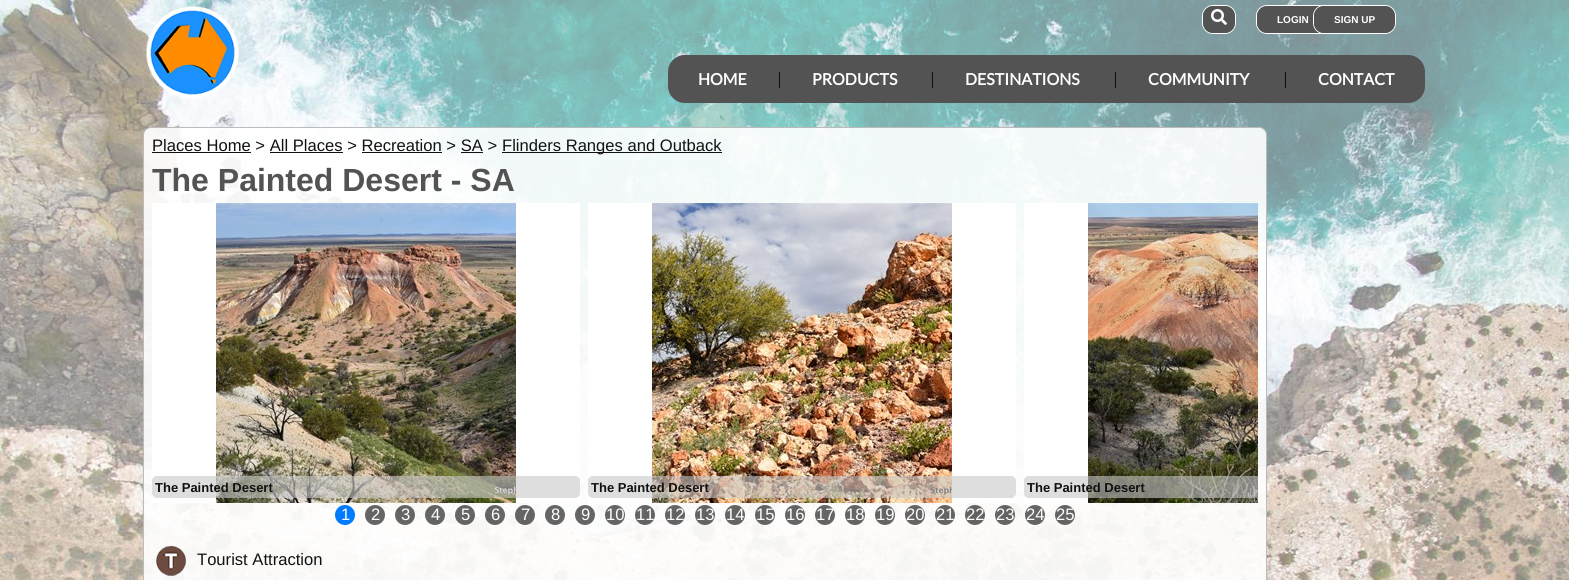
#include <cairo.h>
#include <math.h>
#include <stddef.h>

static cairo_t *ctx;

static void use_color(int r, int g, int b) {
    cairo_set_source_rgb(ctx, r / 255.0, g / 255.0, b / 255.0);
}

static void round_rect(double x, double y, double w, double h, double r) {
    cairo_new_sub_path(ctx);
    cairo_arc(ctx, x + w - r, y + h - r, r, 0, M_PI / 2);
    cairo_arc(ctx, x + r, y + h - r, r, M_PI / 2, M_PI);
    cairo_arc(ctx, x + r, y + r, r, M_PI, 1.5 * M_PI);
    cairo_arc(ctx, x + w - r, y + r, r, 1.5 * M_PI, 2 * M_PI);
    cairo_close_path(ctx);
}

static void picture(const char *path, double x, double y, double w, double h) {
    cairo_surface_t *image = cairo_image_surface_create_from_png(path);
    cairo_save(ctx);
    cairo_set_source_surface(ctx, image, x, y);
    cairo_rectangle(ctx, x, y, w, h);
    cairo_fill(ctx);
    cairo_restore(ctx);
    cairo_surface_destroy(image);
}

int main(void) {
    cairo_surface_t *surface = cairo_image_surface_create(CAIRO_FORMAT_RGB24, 1569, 580);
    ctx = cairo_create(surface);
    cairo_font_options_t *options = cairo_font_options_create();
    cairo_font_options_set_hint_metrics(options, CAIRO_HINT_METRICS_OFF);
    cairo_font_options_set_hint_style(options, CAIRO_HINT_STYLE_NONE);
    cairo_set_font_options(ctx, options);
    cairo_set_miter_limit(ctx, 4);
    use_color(255, 255, 255);
    cairo_paint(ctx);
    picture("img1.png", 0, 0, 1569, 580);
    picture("img2.png", 146, 6, 93, 92);
    round_rect(1202.5, 5.5, 33, 28, 10.5);
    use_color(255, 255, 255);
    cairo_set_line_width(ctx, 1);
    cairo_stroke(ctx);
    use_color(83, 83, 83);
    round_rect(1203, 6, 32, 27, 10);
    cairo_fill(ctx);
    picture("img3.png", 1211, 9, 16, 16);
    round_rect(1256.5, 5.5, 88, 28, 10.5);
    use_color(255, 255, 255);
    cairo_stroke(ctx);
    use_color(83, 83, 83);
    round_rect(1257, 6, 87, 27, 10);
    cairo_fill(ctx);
    cairo_select_font_face(ctx, "Liberation Sans", CAIRO_FONT_SLANT_NORMAL, CAIRO_FONT_WEIGHT_BOLD);
    cairo_set_font_size(ctx, 10);
    use_color(255, 255, 255);
    cairo_move_to(ctx, 1277, 23);
    cairo_show_text(ctx, "LOGIN");
    round_rect(1313.5, 5.5, 82, 28, 10.5);
    cairo_stroke(ctx);
    use_color(83, 83, 83);
    round_rect(1314, 6, 81, 27, 10);
    cairo_fill(ctx);
    use_color(255, 255, 255);
    cairo_move_to(ctx, 1334, 23);
    cairo_show_text(ctx, "SIGN UP");
    use_color(83, 83, 83);
    cairo_new_path(ctx);
    cairo_move_to(ctx, 685, 55);
    cairo_line_to(ctx, 782, 55);
    cairo_line_to(ctx, 782, 103);
    cairo_line_to(ctx, 685, 103);
    cairo_curve_to(ctx, 675.5, 103, 668, 95.5, 668, 86);
    cairo_line_to(ctx, 668, 72);
    cairo_curve_to(ctx, 668, 62.5, 675.5, 55, 685, 55);
    cairo_close_path(ctx);
    cairo_fill(ctx);
    cairo_select_font_face(ctx, "Lato", CAIRO_FONT_SLANT_NORMAL, CAIRO_FONT_WEIGHT_BOLD);
    cairo_set_font_size(ctx, 16);
    use_color(255, 255, 255);
    cairo_move_to(ctx, 698, 85);
    cairo_show_text(ctx, "HOME");
    cairo_select_font_face(ctx, "Lato", CAIRO_FONT_SLANT_NORMAL, CAIRO_FONT_WEIGHT_NORMAL);
    cairo_set_font_size(ctx, 16.6);
    use_color(17, 17, 17);
    cairo_move_to(ctx, 777, 85);
    cairo_show_text(ctx, "|");
    use_color(83, 83, 83);
    cairo_rectangle(ctx, 782, 55, 506, 48);
    cairo_fill(ctx);
    cairo_select_font_face(ctx, "Lato", CAIRO_FONT_SLANT_NORMAL, CAIRO_FONT_WEIGHT_BOLD);
    cairo_set_font_size(ctx, 16);
    use_color(255, 255, 255);
    cairo_move_to(ctx, 812, 85);
    cairo_show_text(ctx, "PRODUCTS");
    cairo_select_font_face(ctx, "Lato", CAIRO_FONT_SLANT_NORMAL, CAIRO_FONT_WEIGHT_NORMAL);
    cairo_set_font_size(ctx, 16.6);
    use_color(17, 17, 17);
    cairo_move_to(ctx, 930, 85);
    cairo_show_text(ctx, "|");
    cairo_select_font_face(ctx, "Lato", CAIRO_FONT_SLANT_NORMAL, CAIRO_FONT_WEIGHT_BOLD);
    cairo_set_font_size(ctx, 16);
    use_color(255, 255, 255);
    cairo_move_to(ctx, 965, 85);
    cairo_show_text(ctx, "DESTINATIONS");
    cairo_select_font_face(ctx, "Lato", CAIRO_FONT_SLANT_NORMAL, CAIRO_FONT_WEIGHT_NORMAL);
    cairo_set_font_size(ctx, 16.6);
    use_color(17, 17, 17);
    cairo_move_to(ctx, 1113, 85);
    cairo_show_text(ctx, "|");
    cairo_select_font_face(ctx, "Lato", CAIRO_FONT_SLANT_NORMAL, CAIRO_FONT_WEIGHT_BOLD);
    cairo_set_font_size(ctx, 16);
    use_color(255, 255, 255);
    cairo_move_to(ctx, 1148, 85);
    cairo_show_text(ctx, "COMMUNITY");
    cairo_select_font_face(ctx, "Lato", CAIRO_FONT_SLANT_NORMAL, CAIRO_FONT_WEIGHT_NORMAL);
    cairo_set_font_size(ctx, 16.6);
    use_color(17, 17, 17);
    cairo_move_to(ctx, 1283, 85);
    cairo_show_text(ctx, "|");
    use_color(83, 83, 83);
    cairo_new_path(ctx);
    cairo_move_to(ctx, 1288, 55);
    cairo_line_to(ctx, 1408, 55);
    cairo_curve_to(ctx, 1417.5, 55, 1425, 62.5, 1425, 72);
    cairo_line_to(ctx, 1425, 86);
    cairo_curve_to(ctx, 1425, 95.5, 1417.5, 103, 1408, 103);
    cairo_line_to(ctx, 1288, 103);
    cairo_close_path(ctx);
    cairo_fill(ctx);
    cairo_select_font_face(ctx, "Lato", CAIRO_FONT_SLANT_NORMAL, CAIRO_FONT_WEIGHT_BOLD);
    cairo_set_font_size(ctx, 16);
    use_color(255, 255, 255);
    cairo_move_to(ctx, 1318, 85);
    cairo_show_text(ctx, "CONTACT");
    cairo_set_source_rgba(ctx, 1, 1, 1, 0.9);
    round_rect(143.5, 127.5, 1123, 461, 7.5);
    cairo_fill_preserve(ctx);
    use_color(187, 187, 187);
    cairo_stroke(ctx);
    cairo_select_font_face(ctx, "Liberation Sans", CAIRO_FONT_SLANT_NORMAL, CAIRO_FONT_WEIGHT_NORMAL);
    cairo_set_font_size(ctx, 16.6);
    use_color(17, 17, 17);
    cairo_move_to(ctx, 152, 151);
    cairo_show_text(ctx, "Places Home > All Places > Recreation > SA >");
    cairo_rectangle(ctx, 152, 152, 99, 1);
    cairo_fill(ctx);
    cairo_rectangle(ctx, 502, 152, 220, 1);
    cairo_fill(ctx);
    cairo_move_to(ctx, 502, 151);
    cairo_show_text(ctx, "Flinders Ranges and Outback");
    cairo_rectangle(ctx, 270, 152, 73, 1);
    cairo_fill(ctx);
    cairo_rectangle(ctx, 362, 152, 80, 1);
    cairo_fill(ctx);
    cairo_rectangle(ctx, 461, 152, 22, 1);
    cairo_fill(ctx);
    cairo_select_font_face(ctx, "Liberation Sans", CAIRO_FONT_SLANT_NORMAL, CAIRO_FONT_WEIGHT_BOLD);
    cairo_set_font_size(ctx, 32);
    use_color(83, 83, 83);
    cairo_move_to(ctx, 152, 191);
    cairo_show_text(ctx, "The Painted Desert - SA");
    use_color(255, 255, 255);
    cairo_rectangle(ctx, 152, 203, 428, 300);
    cairo_fill(ctx);
    picture("img4.png", 216, 203, 300, 300);
    cairo_set_source_rgba(ctx, 0.784, 0.784, 0.784, 0.6);
    round_rect(152, 476, 428, 22, 5);
    cairo_fill(ctx);
    cairo_set_font_size(ctx, 13);
    use_color(17, 17, 17);
    cairo_move_to(ctx, 155, 492);
    cairo_show_text(ctx, "The Painted Desert");
    use_color(255, 255, 255);
    cairo_rectangle(ctx, 588, 203, 428, 300);
    cairo_fill(ctx);
    picture("img5.png", 652, 203, 300, 300);
    cairo_set_source_rgba(ctx, 0.784, 0.784, 0.784, 0.6);
    round_rect(588, 476, 428, 22, 5);
    cairo_fill(ctx);
    use_color(17, 17, 17);
    cairo_move_to(ctx, 591, 492);
    cairo_show_text(ctx, "The Painted Desert");
    use_color(255, 255, 255);
    cairo_rectangle(ctx, 1024, 203, 64, 300);
    cairo_fill(ctx);
    picture("img6.png", 1088, 203, 170, 300);
    cairo_set_source_rgba(ctx, 0.784, 0.784, 0.784, 0.6);
    cairo_new_path(ctx);
    cairo_move_to(ctx, 1029, 476);
    cairo_line_to(ctx, 1258, 476);
    cairo_line_to(ctx, 1258, 498);
    cairo_line_to(ctx, 1029, 498);
    cairo_curve_to(ctx, 1026, 498, 1024, 496, 1024, 493);
    cairo_line_to(ctx, 1024, 481);
    cairo_curve_to(ctx, 1024, 478, 1026, 476, 1029, 476);
    cairo_close_path(ctx);
    cairo_fill(ctx);
    use_color(17, 17, 17);
    cairo_move_to(ctx, 1027, 492);
    cairo_show_text(ctx, "The Painted Desert");
    use_color(0, 122, 255);
    cairo_new_path(ctx);
    cairo_arc(ctx, 345, 515, 10, 0, 2 * M_PI);
    cairo_fill(ctx);
    cairo_select_font_face(ctx, "Liberation Sans", CAIRO_FONT_SLANT_NORMAL, CAIRO_FONT_WEIGHT_NORMAL);
    cairo_set_font_size(ctx, 16.6);
    use_color(255, 255, 255);
    cairo_move_to(ctx, 341, 520);
    cairo_show_text(ctx, "1");
    cairo_set_source_rgba(ctx, 0, 0, 0, 0.6);
    cairo_new_path(ctx);
    cairo_arc(ctx, 375, 515, 10, 0, 2 * M_PI);
    cairo_fill(ctx);
    use_color(255, 255, 255);
    cairo_move_to(ctx, 371, 520);
    cairo_show_text(ctx, "2");
    cairo_set_source_rgba(ctx, 0, 0, 0, 0.6);
    cairo_new_path(ctx);
    cairo_arc(ctx, 405, 515, 10, 0, 2 * M_PI);
    cairo_fill(ctx);
    use_color(255, 255, 255);
    cairo_move_to(ctx, 401, 520);
    cairo_show_text(ctx, "3");
    cairo_set_source_rgba(ctx, 0, 0, 0, 0.6);
    cairo_new_path(ctx);
    cairo_arc(ctx, 435, 515, 10, 0, 2 * M_PI);
    cairo_fill(ctx);
    use_color(255, 255, 255);
    cairo_move_to(ctx, 431, 520);
    cairo_show_text(ctx, "4");
    cairo_set_source_rgba(ctx, 0, 0, 0, 0.6);
    cairo_new_path(ctx);
    cairo_arc(ctx, 465, 515, 10, 0, 2 * M_PI);
    cairo_fill(ctx);
    use_color(255, 255, 255);
    cairo_move_to(ctx, 461, 520);
    cairo_show_text(ctx, "5");
    cairo_set_source_rgba(ctx, 0, 0, 0, 0.6);
    cairo_new_path(ctx);
    cairo_arc(ctx, 495, 515, 10, 0, 2 * M_PI);
    cairo_fill(ctx);
    use_color(255, 255, 255);
    cairo_move_to(ctx, 491, 520);
    cairo_show_text(ctx, "6");
    cairo_set_source_rgba(ctx, 0, 0, 0, 0.6);
    cairo_new_path(ctx);
    cairo_arc(ctx, 525, 515, 10, 0, 2 * M_PI);
    cairo_fill(ctx);
    use_color(255, 255, 255);
    cairo_move_to(ctx, 521, 520);
    cairo_show_text(ctx, "7");
    cairo_set_source_rgba(ctx, 0, 0, 0, 0.6);
    cairo_new_path(ctx);
    cairo_arc(ctx, 555, 515, 10, 0, 2 * M_PI);
    cairo_fill(ctx);
    use_color(255, 255, 255);
    cairo_move_to(ctx, 551, 520);
    cairo_show_text(ctx, "8");
    cairo_set_source_rgba(ctx, 0, 0, 0, 0.6);
    cairo_new_path(ctx);
    cairo_arc(ctx, 585, 515, 10, 0, 2 * M_PI);
    cairo_fill(ctx);
    use_color(255, 255, 255);
    cairo_move_to(ctx, 581, 520);
    cairo_show_text(ctx, "9");
    cairo_set_source_rgba(ctx, 0, 0, 0, 0.6);
    cairo_new_path(ctx);
    cairo_arc(ctx, 615, 515, 10, 0, 2 * M_PI);
    cairo_fill(ctx);
    use_color(255, 255, 255);
    cairo_move_to(ctx, 606, 520);
    cairo_show_text(ctx, "10");
    cairo_set_source_rgba(ctx, 0, 0, 0, 0.6);
    cairo_new_path(ctx);
    cairo_arc(ctx, 645, 515, 10, 0, 2 * M_PI);
    cairo_fill(ctx);
    use_color(255, 255, 255);
    cairo_move_to(ctx, 636, 520);
    cairo_show_text(ctx, "11");
    cairo_set_source_rgba(ctx, 0, 0, 0, 0.6);
    cairo_new_path(ctx);
    cairo_arc(ctx, 675, 515, 10, 0, 2 * M_PI);
    cairo_fill(ctx);
    use_color(255, 255, 255);
    cairo_move_to(ctx, 666, 520);
    cairo_show_text(ctx, "12");
    cairo_set_source_rgba(ctx, 0, 0, 0, 0.6);
    cairo_new_path(ctx);
    cairo_arc(ctx, 705, 515, 10, 0, 2 * M_PI);
    cairo_fill(ctx);
    use_color(255, 255, 255);
    cairo_move_to(ctx, 696, 520);
    cairo_show_text(ctx, "13");
    cairo_set_source_rgba(ctx, 0, 0, 0, 0.6);
    cairo_new_path(ctx);
    cairo_arc(ctx, 735, 515, 10, 0, 2 * M_PI);
    cairo_fill(ctx);
    use_color(255, 255, 255);
    cairo_move_to(ctx, 726, 520);
    cairo_show_text(ctx, "14");
    cairo_set_source_rgba(ctx, 0, 0, 0, 0.6);
    cairo_new_path(ctx);
    cairo_arc(ctx, 765, 515, 10, 0, 2 * M_PI);
    cairo_fill(ctx);
    use_color(255, 255, 255);
    cairo_move_to(ctx, 756, 520);
    cairo_show_text(ctx, "15");
    cairo_set_source_rgba(ctx, 0, 0, 0, 0.6);
    cairo_new_path(ctx);
    cairo_arc(ctx, 795, 515, 10, 0, 2 * M_PI);
    cairo_fill(ctx);
    use_color(255, 255, 255);
    cairo_move_to(ctx, 786, 520);
    cairo_show_text(ctx, "16");
    cairo_set_source_rgba(ctx, 0, 0, 0, 0.6);
    cairo_new_path(ctx);
    cairo_arc(ctx, 825, 515, 10, 0, 2 * M_PI);
    cairo_fill(ctx);
    use_color(255, 255, 255);
    cairo_move_to(ctx, 816, 520);
    cairo_show_text(ctx, "17");
    cairo_set_source_rgba(ctx, 0, 0, 0, 0.6);
    cairo_new_path(ctx);
    cairo_arc(ctx, 855, 515, 10, 0, 2 * M_PI);
    cairo_fill(ctx);
    use_color(255, 255, 255);
    cairo_move_to(ctx, 846, 520);
    cairo_show_text(ctx, "18");
    cairo_set_source_rgba(ctx, 0, 0, 0, 0.6);
    cairo_new_path(ctx);
    cairo_arc(ctx, 885, 515, 10, 0, 2 * M_PI);
    cairo_fill(ctx);
    use_color(255, 255, 255);
    cairo_move_to(ctx, 876, 520);
    cairo_show_text(ctx, "19");
    cairo_set_source_rgba(ctx, 0, 0, 0, 0.6);
    cairo_new_path(ctx);
    cairo_arc(ctx, 915, 515, 10, 0, 2 * M_PI);
    cairo_fill(ctx);
    use_color(255, 255, 255);
    cairo_move_to(ctx, 906, 520);
    cairo_show_text(ctx, "20");
    cairo_set_source_rgba(ctx, 0, 0, 0, 0.6);
    cairo_new_path(ctx);
    cairo_arc(ctx, 945, 515, 10, 0, 2 * M_PI);
    cairo_fill(ctx);
    use_color(255, 255, 255);
    cairo_move_to(ctx, 936, 520);
    cairo_show_text(ctx, "21");
    cairo_set_source_rgba(ctx, 0, 0, 0, 0.6);
    cairo_new_path(ctx);
    cairo_arc(ctx, 975, 515, 10, 0, 2 * M_PI);
    cairo_fill(ctx);
    use_color(255, 255, 255);
    cairo_move_to(ctx, 966, 520);
    cairo_show_text(ctx, "22");
    cairo_set_source_rgba(ctx, 0, 0, 0, 0.6);
    cairo_new_path(ctx);
    cairo_arc(ctx, 1005, 515, 10, 0, 2 * M_PI);
    cairo_fill(ctx);
    use_color(255, 255, 255);
    cairo_move_to(ctx, 996, 520);
    cairo_show_text(ctx, "23");
    cairo_set_source_rgba(ctx, 0, 0, 0, 0.6);
    cairo_new_path(ctx);
    cairo_arc(ctx, 1035, 515, 10, 0, 2 * M_PI);
    cairo_fill(ctx);
    use_color(255, 255, 255);
    cairo_move_to(ctx, 1026, 520);
    cairo_show_text(ctx, "24");
    cairo_set_source_rgba(ctx, 0, 0, 0, 0.6);
    cairo_new_path(ctx);
    cairo_arc(ctx, 1065, 515, 10, 0, 2 * M_PI);
    cairo_fill(ctx);
    use_color(255, 255, 255);
    cairo_move_to(ctx, 1056, 520);
    cairo_show_text(ctx, "25");
    picture("img7.png", 156, 546, 30, 30);
    use_color(17, 17, 17);
    cairo_move_to(ctx, 197, 565);
    cairo_show_text(ctx, "Tourist Attraction");
    cairo_surface_write_to_png(surface, "result.png");
    cairo_font_options_destroy(options);
    cairo_destroy(ctx);
    cairo_surface_destroy(surface);
    return 0;
}
